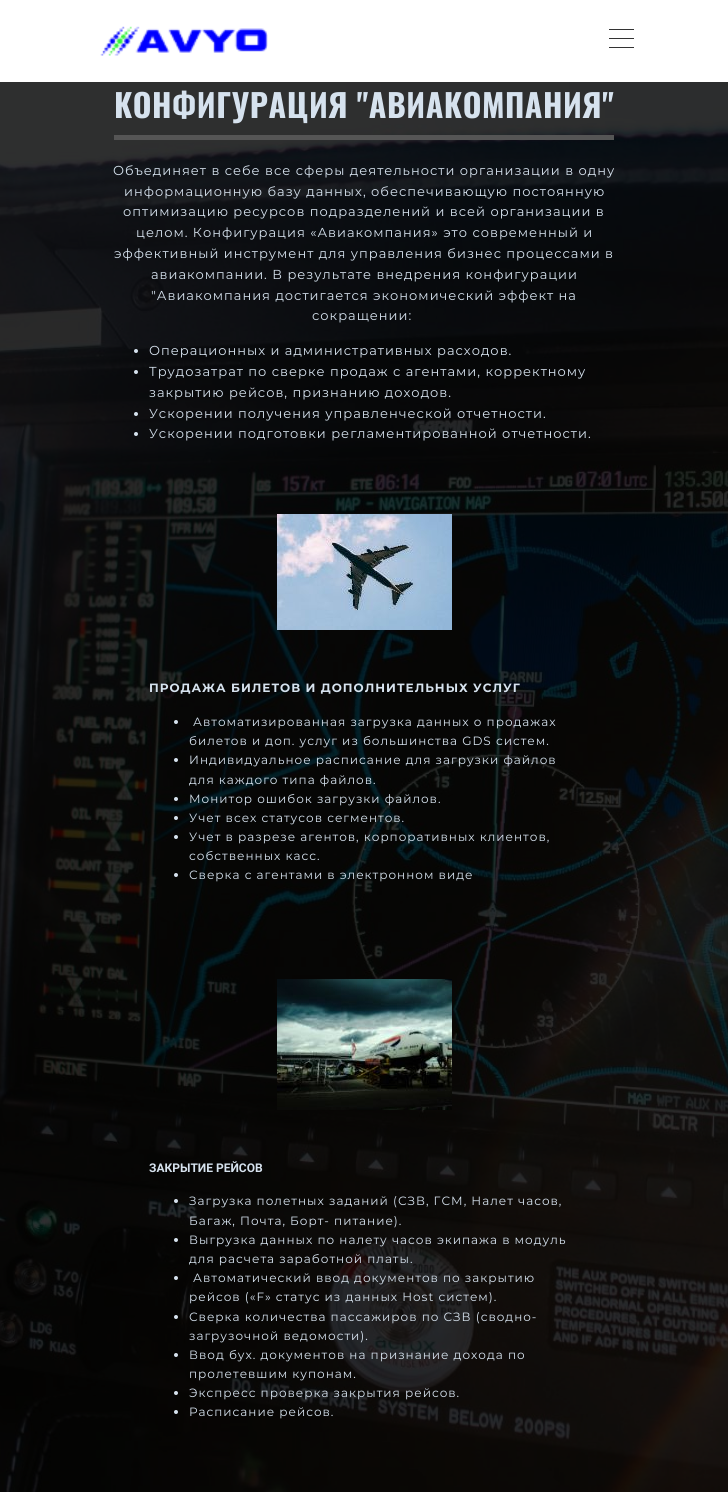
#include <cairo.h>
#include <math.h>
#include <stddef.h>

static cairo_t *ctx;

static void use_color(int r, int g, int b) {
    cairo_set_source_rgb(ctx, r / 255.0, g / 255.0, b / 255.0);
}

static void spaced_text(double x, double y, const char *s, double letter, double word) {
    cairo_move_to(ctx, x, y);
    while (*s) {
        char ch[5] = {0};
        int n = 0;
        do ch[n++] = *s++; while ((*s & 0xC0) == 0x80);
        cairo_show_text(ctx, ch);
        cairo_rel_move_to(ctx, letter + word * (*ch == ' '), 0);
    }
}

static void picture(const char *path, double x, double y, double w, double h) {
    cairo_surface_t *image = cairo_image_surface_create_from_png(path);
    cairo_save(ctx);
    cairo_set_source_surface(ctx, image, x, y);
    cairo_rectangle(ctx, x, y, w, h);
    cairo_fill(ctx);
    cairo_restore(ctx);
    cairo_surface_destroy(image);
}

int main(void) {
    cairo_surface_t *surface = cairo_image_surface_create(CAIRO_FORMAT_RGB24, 728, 1492);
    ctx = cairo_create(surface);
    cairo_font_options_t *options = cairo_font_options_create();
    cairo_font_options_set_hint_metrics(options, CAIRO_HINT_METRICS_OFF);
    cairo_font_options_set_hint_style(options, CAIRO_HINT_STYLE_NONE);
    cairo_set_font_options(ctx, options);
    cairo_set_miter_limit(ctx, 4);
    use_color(255, 255, 255);
    cairo_paint(ctx);
    picture("img1.png", 0, 82, 728, 1410);
    picture("img2.png", 100, 26, 168, 30);
    use_color(51, 51, 51);
    cairo_rectangle(ctx, 609, 29, 25, 1);
    cairo_fill(ctx);
    cairo_rectangle(ctx, 609, 38, 25, 1);
    cairo_fill(ctx);
    cairo_rectangle(ctx, 609, 47, 25, 1);
    cairo_fill(ctx);
    use_color(85, 85, 85);
    cairo_rectangle(ctx, 114, 135, 500, 5);
    cairo_fill(ctx);
    cairo_select_font_face(ctx, "Oswald", CAIRO_FONT_SLANT_NORMAL, CAIRO_FONT_WEIGHT_BOLD);
    cairo_set_font_size(ctx, 32);
    use_color(214, 226, 238);
    spaced_text(114, 118, "КОНФИГУРАЦИЯ \"АВИАКОМПАНИЯ\"", 0.5, 0);
    cairo_select_font_face(ctx, "Montserrat", CAIRO_FONT_SLANT_NORMAL, CAIRO_FONT_WEIGHT_NORMAL);
    cairo_set_font_size(ctx, 13);
    spaced_text(113, 175, "Объединяет в себе все сферы деятельности организации в одну", 1, 0);
    spaced_text(124, 196, "информационную базу данных, обеспечивающую постоянную", 1, 0);
    spaced_text(123, 216, "оптимизацию ресурсов подразделений и всей организации в", 1, 0);
    spaced_text(136, 237, "целом. Конфигурация «Авиакомпания» это современный и", 1, 0);
    spaced_text(114, 258, "эффективный инструмент для управления бизнес процессами в", 1, 0);
    spaced_text(151, 279, "авиакомпании. В результате внедрения конфигурации", 1, 0);
    spaced_text(151, 300, "\"Авиакомпания достигается экономический эффект на", 1, 0);
    spaced_text(312, 320, "сокращении:", 1, 0);
    cairo_new_path(ctx);
    cairo_arc(ctx, 136, 351, 2, 0, 2 * M_PI);
    cairo_fill(ctx);
    spaced_text(149, 355, "Операционных и административных расходов.", 1, 0);
    cairo_new_path(ctx);
    cairo_arc(ctx, 136, 372, 2, 0, 2 * M_PI);
    cairo_fill(ctx);
    spaced_text(149, 376, "Трудозатрат по сверке продаж с агентами, корректному", 1, 0);
    spaced_text(149, 397, "закрытию рейсов, признанию доходов.", 1, 0);
    cairo_new_path(ctx);
    cairo_arc(ctx, 136, 414, 2, 0, 2 * M_PI);
    cairo_fill(ctx);
    spaced_text(149, 418, "Ускорении получения управленческой отчетности.", 1, 0);
    cairo_new_path(ctx);
    cairo_arc(ctx, 136, 434, 2, 0, 2 * M_PI);
    cairo_fill(ctx);
    spaced_text(149, 438, "Ускорении подготовки регламентированной отчетности.", 1, 0);
    picture("img3.png", 277, 514, 175, 116);
    cairo_select_font_face(ctx, "Montserrat", CAIRO_FONT_SLANT_NORMAL, CAIRO_FONT_WEIGHT_BOLD);
    cairo_set_font_size(ctx, 12);
    spaced_text(149, 692, "ПРОДАЖА БИЛЕТОВ И ДОПОЛНИТЕЛЬНЫХ УСЛУГ", 1, 0);
    cairo_new_path(ctx);
    cairo_arc(ctx, 176, 722, 2, 0, 2 * M_PI);
    cairo_fill(ctx);
    cairo_select_font_face(ctx, "Montserrat", CAIRO_FONT_SLANT_NORMAL, CAIRO_FONT_WEIGHT_NORMAL);
    spaced_text(193, 726, "Автоматизированная загрузка данных о продажах", 1, 0);
    spaced_text(189, 745, "билетов и доп. услуг из большинства GDS систем.", 1, 0);
    cairo_new_path(ctx);
    cairo_arc(ctx, 176, 760, 2, 0, 2 * M_PI);
    cairo_fill(ctx);
    spaced_text(189, 764, "Индивидуальное расписание для загрузки файлов", 1, 0);
    spaced_text(189, 784, "для каждого типа файлов.", 1, 0);
    cairo_new_path(ctx);
    cairo_arc(ctx, 176, 799, 2, 0, 2 * M_PI);
    cairo_fill(ctx);
    spaced_text(189, 803, "Монитор ошибок загрузки файлов.", 1, 0);
    cairo_new_path(ctx);
    cairo_arc(ctx, 176, 818, 2, 0, 2 * M_PI);
    cairo_fill(ctx);
    spaced_text(189, 822, "Учет всех статусов сегментов.", 1, 0);
    cairo_new_path(ctx);
    cairo_arc(ctx, 176, 837, 2, 0, 2 * M_PI);
    cairo_fill(ctx);
    spaced_text(189, 841, "Учет в разрезе агентов, корпоративных клиентов,", 1, 0);
    spaced_text(189, 860, "собственных касс.", 1, 0);
    cairo_new_path(ctx);
    cairo_arc(ctx, 176, 875, 2, 0, 2 * M_PI);
    cairo_fill(ctx);
    spaced_text(189, 879, "Сверка с агентами в электронном виде", 1, 0);
    picture("img4.png", 277, 979, 175, 131);
    cairo_select_font_face(ctx, "Roboto", CAIRO_FONT_SLANT_NORMAL, CAIRO_FONT_WEIGHT_BOLD);
    cairo_move_to(ctx, 149, 1172);
    cairo_show_text(ctx, "ЗАКРЫТИЕ РЕЙСОВ");
    cairo_new_path(ctx);
    cairo_arc(ctx, 176, 1201, 2, 0, 2 * M_PI);
    cairo_fill(ctx);
    cairo_select_font_face(ctx, "Montserrat", CAIRO_FONT_SLANT_NORMAL, CAIRO_FONT_WEIGHT_NORMAL);
    spaced_text(189, 1205, "Загрузка полетных заданий (СЗВ, ГСМ, Налет часов,", 1, 0);
    spaced_text(189, 1225, "Багаж, Почта, Борт- питание).", 1, 0);
    cairo_new_path(ctx);
    cairo_arc(ctx, 176, 1240, 2, 0, 2 * M_PI);
    cairo_fill(ctx);
    spaced_text(189, 1244, "Выгрузка данных по налету часов экипажа в модуль", 1, 0);
    spaced_text(189, 1263, "для расчета заработной платы.", 1, 0);
    cairo_new_path(ctx);
    cairo_arc(ctx, 176, 1278, 2, 0, 2 * M_PI);
    cairo_fill(ctx);
    spaced_text(193, 1282, "Автоматический ввод документов по закрытию", 1, 0);
    spaced_text(189, 1301, "рейсов («F» статус из данных Host систем).", 1, 0);
    cairo_new_path(ctx);
    cairo_arc(ctx, 176, 1317, 2, 0, 2 * M_PI);
    cairo_fill(ctx);
    spaced_text(189, 1321, "Сверка количества пассажиров по СЗВ (сводно-", 1, 0);
    spaced_text(189, 1340, "загрузочной ведомости).", 1, 0);
    cairo_new_path(ctx);
    cairo_arc(ctx, 176, 1355, 2, 0, 2 * M_PI);
    cairo_fill(ctx);
    spaced_text(189, 1359, "Ввод бух. документов на признание дохода по", 1, 0);
    spaced_text(189, 1378, "пролетевшим купонам.", 1, 0);
    cairo_new_path(ctx);
    cairo_arc(ctx, 176, 1393, 2, 0, 2 * M_PI);
    cairo_fill(ctx);
    spaced_text(189, 1397, "Экспресс проверка закрытия рейсов.", 1, 0);
    cairo_new_path(ctx);
    cairo_arc(ctx, 176, 1412, 2, 0, 2 * M_PI);
    cairo_fill(ctx);
    spaced_text(189, 1416, "Расписание рейсов.", 1, 0);
    cairo_surface_write_to_png(surface, "result.png");
    cairo_font_options_destroy(options);
    cairo_destroy(ctx);
    cairo_surface_destroy(surface);
    return 0;
}
